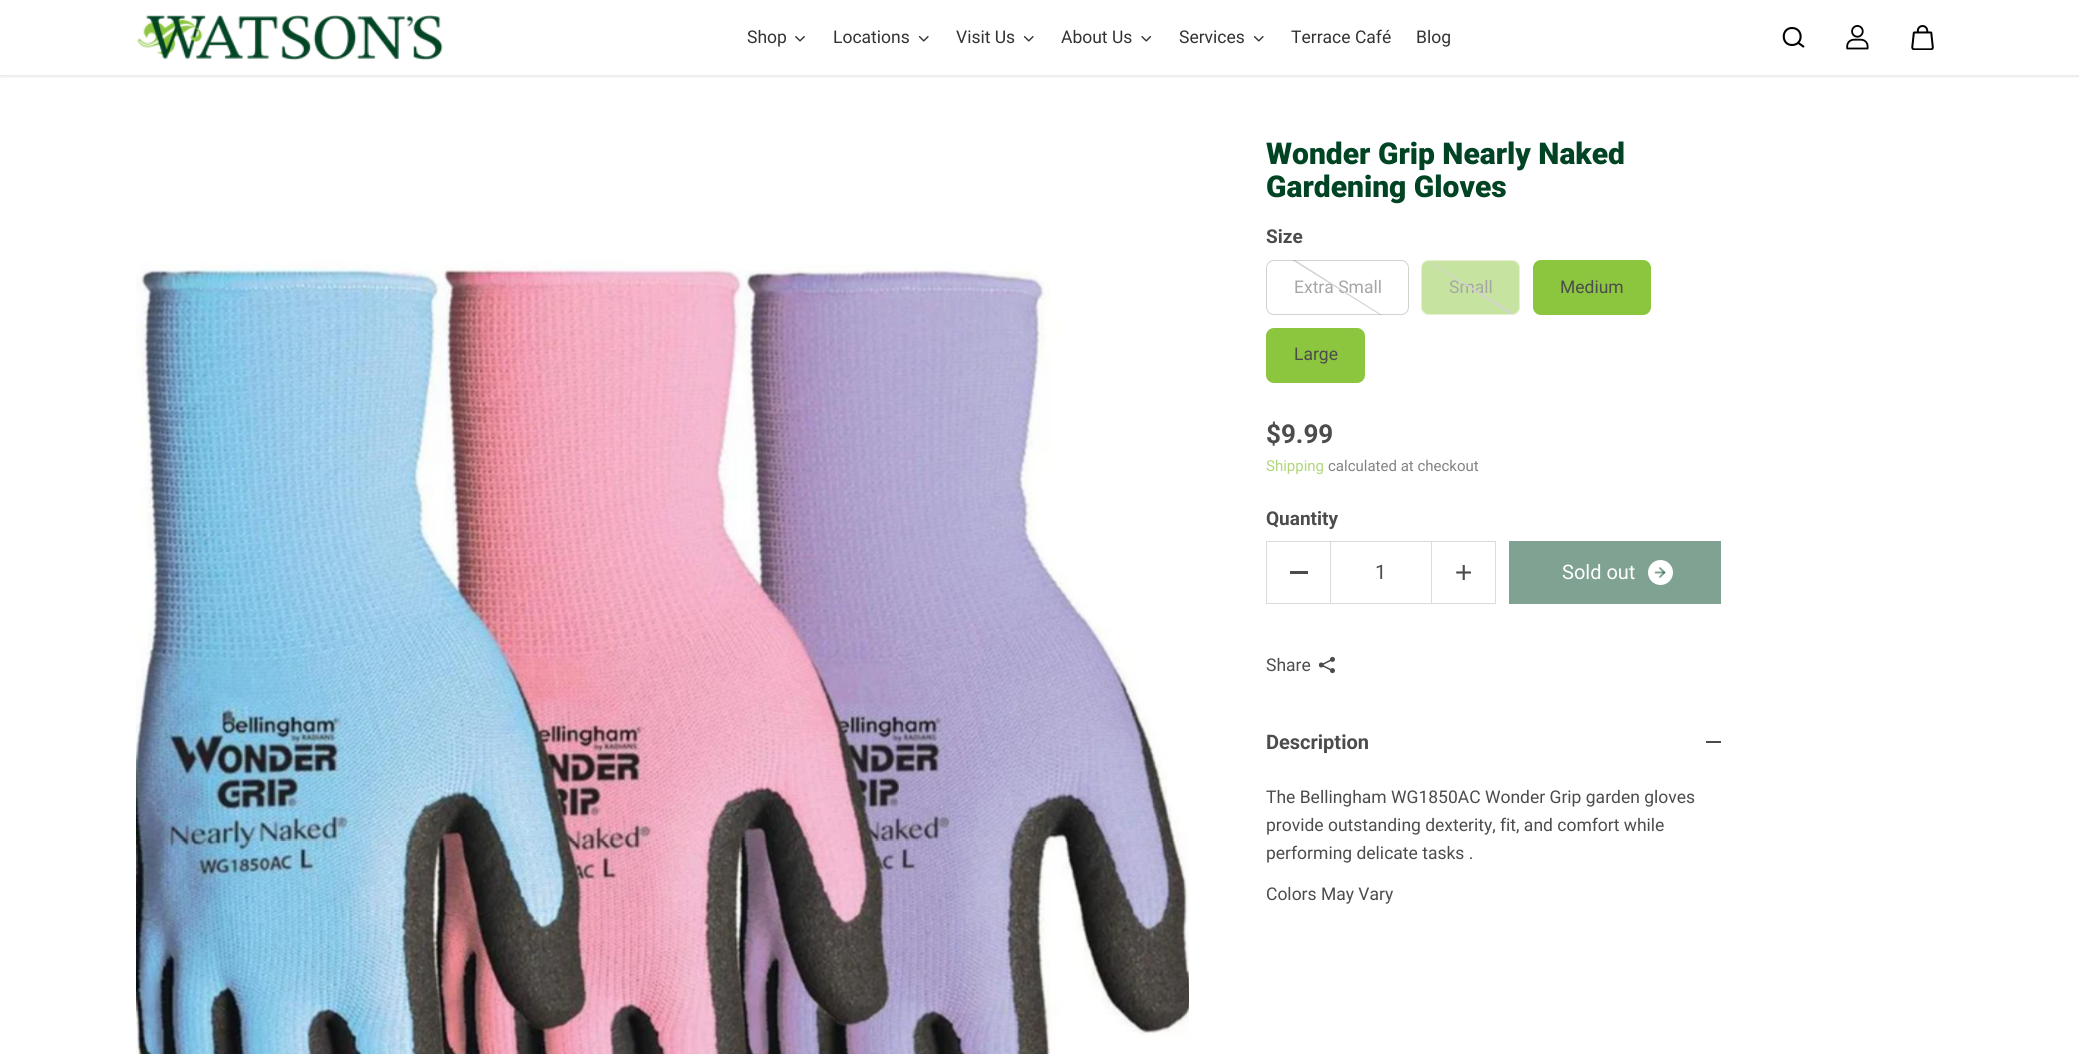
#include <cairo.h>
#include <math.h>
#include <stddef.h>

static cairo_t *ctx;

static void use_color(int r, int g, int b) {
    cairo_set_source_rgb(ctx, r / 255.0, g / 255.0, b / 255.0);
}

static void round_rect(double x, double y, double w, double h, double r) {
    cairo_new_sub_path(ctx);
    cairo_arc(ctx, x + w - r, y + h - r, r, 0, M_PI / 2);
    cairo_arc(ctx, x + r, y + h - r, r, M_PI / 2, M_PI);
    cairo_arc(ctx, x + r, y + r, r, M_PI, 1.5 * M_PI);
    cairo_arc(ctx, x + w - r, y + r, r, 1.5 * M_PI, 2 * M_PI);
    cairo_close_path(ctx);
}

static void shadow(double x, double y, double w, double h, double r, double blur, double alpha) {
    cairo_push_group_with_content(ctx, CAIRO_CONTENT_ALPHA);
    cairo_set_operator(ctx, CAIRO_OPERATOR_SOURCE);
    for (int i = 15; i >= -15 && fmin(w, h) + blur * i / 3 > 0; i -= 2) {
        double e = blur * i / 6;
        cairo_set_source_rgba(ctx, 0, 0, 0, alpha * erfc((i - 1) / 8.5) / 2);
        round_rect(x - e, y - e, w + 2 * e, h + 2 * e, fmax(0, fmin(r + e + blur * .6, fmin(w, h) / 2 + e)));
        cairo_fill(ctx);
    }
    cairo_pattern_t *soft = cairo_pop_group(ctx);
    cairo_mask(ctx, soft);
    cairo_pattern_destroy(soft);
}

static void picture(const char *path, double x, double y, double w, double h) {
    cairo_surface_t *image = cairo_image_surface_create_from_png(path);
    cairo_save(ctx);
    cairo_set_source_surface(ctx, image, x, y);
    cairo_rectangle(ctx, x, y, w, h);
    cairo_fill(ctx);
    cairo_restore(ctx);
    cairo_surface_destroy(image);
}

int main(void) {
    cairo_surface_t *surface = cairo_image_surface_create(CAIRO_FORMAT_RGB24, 2079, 1054);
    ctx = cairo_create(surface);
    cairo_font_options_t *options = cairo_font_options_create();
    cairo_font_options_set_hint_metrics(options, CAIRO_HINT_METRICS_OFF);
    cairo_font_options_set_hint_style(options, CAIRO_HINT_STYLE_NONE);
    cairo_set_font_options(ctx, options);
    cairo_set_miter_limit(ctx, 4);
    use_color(255, 255, 255);
    cairo_paint(ctx);
    picture("img7.png", 136, 78, 1053, 976);
    cairo_save(ctx);
    cairo_rectangle(ctx, 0, 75, 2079, 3);
    cairo_clip(ctx);
    use_color(0, 0, 0);
    shadow(0, 0, 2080, 75, 0, 2.5, 0.21);
    cairo_restore(ctx);
    picture("img1.png", 137, 15, 306, 46);
    cairo_select_font_face(ctx, "Roboto", CAIRO_FONT_SLANT_NORMAL, CAIRO_FONT_WEIGHT_NORMAL);
    cairo_set_font_size(ctx, 17.5);
    use_color(51, 51, 51);
    cairo_move_to(ctx, 747, 43);
    cairo_show_text(ctx, "Shop");
    picture("img2.png", 795, 36, 10, 6);
    cairo_move_to(ctx, 833, 43);
    cairo_show_text(ctx, "Locations");
    picture("img3.png", 918, 36, 11, 6);
    cairo_move_to(ctx, 956, 43);
    cairo_show_text(ctx, "Visit Us");
    picture("img3.png", 1023, 36, 11, 6);
    cairo_move_to(ctx, 1061, 43);
    cairo_show_text(ctx, "About Us");
    picture("img4.png", 1141, 36, 11, 6);
    cairo_move_to(ctx, 1179, 43);
    cairo_show_text(ctx, "Services");
    picture("img3.png", 1253, 36, 11, 6);
    cairo_move_to(ctx, 1291, 43);
    cairo_show_text(ctx, "Terrace Café");
    cairo_move_to(ctx, 1416, 43);
    cairo_show_text(ctx, "Blog");
    cairo_new_path(ctx);
    cairo_move_to(ctx, 1792, 45);
    cairo_curve_to(ctx, 1803.5, 45, 1803.5, 28, 1792, 28);
    cairo_curve_to(ctx, 1781, 28, 1781, 45, 1792, 45);
    cairo_close_path(ctx);
    cairo_move_to(ctx, 1798.5, 43);
    cairo_line_to(ctx, 1804, 47);
    use_color(0, 0, 0);
    cairo_set_line_width(ctx, 2.1);
    cairo_stroke(ctx);
    picture("img5.png", 1846, 25, 23, 25);
    picture("img6.png", 1911, 25, 23, 25);
    cairo_select_font_face(ctx, "Roboto Black", CAIRO_FONT_SLANT_NORMAL, CAIRO_FONT_WEIGHT_NORMAL);
    cairo_set_font_size(ctx, 30);
    use_color(0, 68, 36);
    cairo_move_to(ctx, 1266, 164);
    cairo_show_text(ctx, "Wonder Grip Nearly Naked");
    cairo_move_to(ctx, 1266, 197);
    cairo_show_text(ctx, "Gardening Gloves");
    cairo_select_font_face(ctx, "Roboto", CAIRO_FONT_SLANT_NORMAL, CAIRO_FONT_WEIGHT_BOLD);
    cairo_set_font_size(ctx, 19);
    use_color(76, 76, 76);
    cairo_move_to(ctx, 1266, 243);
    cairo_show_text(ctx, "Size");
    cairo_select_font_face(ctx, "Roboto", CAIRO_FONT_SLANT_NORMAL, CAIRO_FONT_WEIGHT_NORMAL);
    cairo_set_font_size(ctx, 17.5);
    use_color(166, 166, 166);
    cairo_move_to(ctx, 1294, 293);
    cairo_show_text(ctx, "Extra Small");
    use_color(210, 210, 210);
    cairo_new_path(ctx);
    cairo_move_to(ctx, 1380, 315);
    cairo_line_to(ctx, 1292, 260);
    cairo_line_to(ctx, 1295, 260);
    cairo_line_to(ctx, 1382, 315);
    cairo_close_path(ctx);
    cairo_fill(ctx);
    round_rect(1266.5, 260.5, 142, 54, 7.5);
    cairo_set_source_rgba(ctx, 0.651, 0.651, 0.651, 0.5);
    cairo_set_line_width(ctx, 1);
    cairo_stroke(ctx);
    use_color(198, 227, 159);
    round_rect(1421, 260, 99, 55, 8);
    cairo_fill(ctx);
    use_color(166, 166, 166);
    cairo_move_to(ctx, 1449, 293);
    cairo_show_text(ctx, "Small");
    use_color(210, 210, 210);
    cairo_new_path(ctx);
    cairo_move_to(ctx, 1429, 261);
    cairo_line_to(ctx, 1513, 313);
    cairo_line_to(ctx, 1512, 315);
    cairo_line_to(ctx, 1429, 262);
    cairo_close_path(ctx);
    cairo_fill(ctx);
    round_rect(1421.5, 260.5, 98, 54, 7.5);
    cairo_set_source_rgba(ctx, 1, 1, 1, 0.5);
    cairo_stroke(ctx);
    use_color(140, 198, 62);
    round_rect(1533, 260, 118, 55, 8);
    cairo_fill(ctx);
    use_color(76, 76, 76);
    cairo_move_to(ctx, 1560, 293);
    cairo_show_text(ctx, "Medium");
    use_color(140, 198, 62);
    round_rect(1266, 328, 99, 55, 8);
    cairo_fill(ctx);
    use_color(76, 76, 76);
    cairo_move_to(ctx, 1294, 360);
    cairo_show_text(ctx, "Large");
    cairo_select_font_face(ctx, "Roboto", CAIRO_FONT_SLANT_NORMAL, CAIRO_FONT_WEIGHT_BOLD);
    cairo_set_font_size(ctx, 26);
    cairo_move_to(ctx, 1266, 443);
    cairo_show_text(ctx, "$9.99");
    cairo_select_font_face(ctx, "Roboto", CAIRO_FONT_SLANT_NORMAL, CAIRO_FONT_WEIGHT_NORMAL);
    cairo_set_font_size(ctx, 15);
    use_color(175, 215, 120);
    cairo_move_to(ctx, 1266, 471);
    cairo_show_text(ctx, "Shipping");
    use_color(130, 130, 130);
    cairo_move_to(ctx, 1328, 471);
    cairo_show_text(ctx, "calculated at checkout");
    cairo_select_font_face(ctx, "Roboto", CAIRO_FONT_SLANT_NORMAL, CAIRO_FONT_WEIGHT_BOLD);
    cairo_set_font_size(ctx, 19);
    use_color(76, 76, 76);
    cairo_move_to(ctx, 1266, 525);
    cairo_show_text(ctx, "Quantity");
    cairo_rectangle(ctx, 1266.5, 541.5, 64, 62);
    use_color(219, 219, 219);
    cairo_stroke(ctx);
    use_color(76, 76, 76);
    cairo_rectangle(ctx, 1290, 571, 18, 3);
    cairo_fill(ctx);
    use_color(219, 219, 219);
    cairo_rectangle(ctx, 1331, 541, 100, 1);
    cairo_fill(ctx);
    cairo_rectangle(ctx, 1331, 603, 100, 1);
    cairo_fill(ctx);
    cairo_select_font_face(ctx, "Roboto", CAIRO_FONT_SLANT_NORMAL, CAIRO_FONT_WEIGHT_NORMAL);
    cairo_set_font_size(ctx, 20);
    use_color(76, 76, 76);
    cairo_move_to(ctx, 1375, 579);
    cairo_show_text(ctx, "1");
    cairo_rectangle(ctx, 1431.5, 541.5, 64, 62);
    use_color(219, 219, 219);
    cairo_stroke(ctx);
    picture("img8.png", 1456, 565, 15, 15);
    use_color(128, 162, 146);
    cairo_rectangle(ctx, 1509, 541, 212, 63);
    cairo_fill(ctx);
    use_color(255, 255, 255);
    cairo_move_to(ctx, 1562, 579);
    cairo_show_text(ctx, "Sold out");
    cairo_new_path(ctx);
    cairo_arc(ctx, 1660.5, 572.5, 12.5, 0, 2 * M_PI);
    cairo_fill(ctx);
    picture("img9.png", 1654, 567, 12, 11);
    cairo_set_font_size(ctx, 17.5);
    use_color(76, 76, 76);
    cairo_move_to(ctx, 1266, 671);
    cairo_show_text(ctx, "Share");
    picture("img10.png", 1319, 656, 16, 18);
    cairo_select_font_face(ctx, "Roboto", CAIRO_FONT_SLANT_NORMAL, CAIRO_FONT_WEIGHT_BOLD);
    cairo_set_font_size(ctx, 20);
    cairo_move_to(ctx, 1266, 749);
    cairo_show_text(ctx, "Description");
    cairo_rectangle(ctx, 1706, 741, 15, 2);
    cairo_fill(ctx);
    cairo_select_font_face(ctx, "Roboto", CAIRO_FONT_SLANT_NORMAL, CAIRO_FONT_WEIGHT_NORMAL);
    cairo_set_font_size(ctx, 17.5);
    cairo_move_to(ctx, 1266, 803);
    cairo_show_text(ctx, "The Bellingham WG1850AC Wonder Grip garden gloves");
    cairo_move_to(ctx, 1266, 831);
    cairo_show_text(ctx, "provide outstanding dexterity, fit, and comfort while");
    cairo_move_to(ctx, 1266, 859);
    cairo_show_text(ctx, "performing delicate tasks .");
    cairo_move_to(ctx, 1266, 900);
    cairo_show_text(ctx, "Colors May Vary");
    cairo_surface_write_to_png(surface, "result.png");
    cairo_font_options_destroy(options);
    cairo_destroy(ctx);
    cairo_surface_destroy(surface);
    return 0;
}
